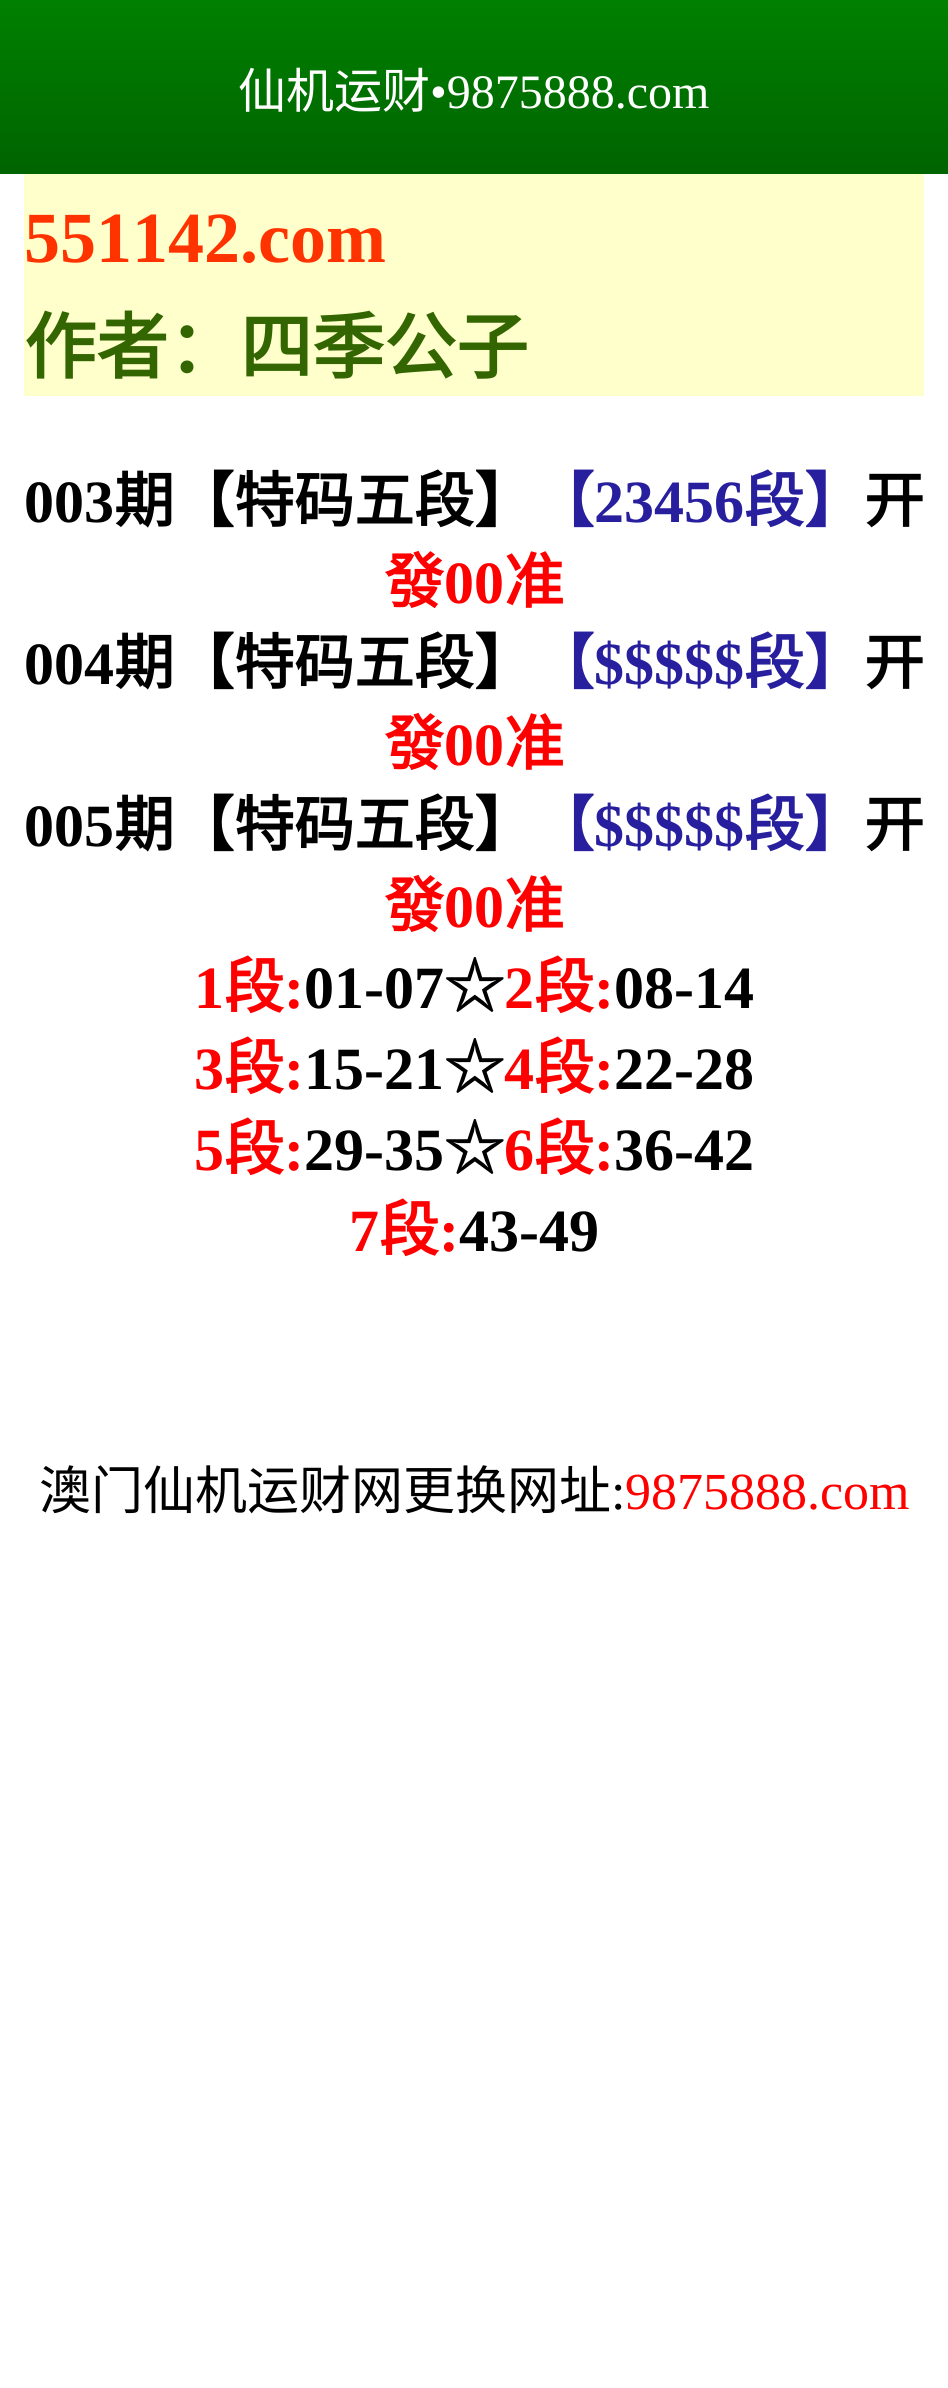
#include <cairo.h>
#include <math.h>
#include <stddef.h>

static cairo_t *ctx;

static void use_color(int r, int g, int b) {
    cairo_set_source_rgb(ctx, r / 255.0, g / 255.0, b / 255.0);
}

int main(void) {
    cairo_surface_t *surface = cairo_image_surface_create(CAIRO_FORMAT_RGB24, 948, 2388);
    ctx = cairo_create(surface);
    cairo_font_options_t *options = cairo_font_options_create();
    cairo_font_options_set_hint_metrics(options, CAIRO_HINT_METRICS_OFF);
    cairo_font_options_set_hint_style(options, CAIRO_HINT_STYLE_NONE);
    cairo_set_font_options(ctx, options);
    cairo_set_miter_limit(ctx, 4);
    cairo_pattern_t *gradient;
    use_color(255, 255, 255);
    cairo_paint(ctx);
    gradient = cairo_pattern_create_linear(474, 174, 474, 0);
    cairo_pattern_add_color_stop_rgba(gradient, 0, 0, 0.392, 0, 1);
    cairo_pattern_add_color_stop_rgba(gradient, 1, 0, 0.502, 0, 1);
    cairo_set_source(ctx, gradient);
    cairo_pattern_destroy(gradient);
    cairo_rectangle(ctx, 0, 0, 948, 174);
    cairo_fill(ctx);
    cairo_select_font_face(ctx, "Noto Sans CJK SC", CAIRO_FONT_SLANT_NORMAL, CAIRO_FONT_WEIGHT_NORMAL);
    cairo_set_font_size(ctx, 48);
    use_color(255, 255, 255);
    cairo_move_to(ctx, 238, 108);
    cairo_show_text(ctx, "仙机运财");
    cairo_select_font_face(ctx, "Liberation Serif", CAIRO_FONT_SLANT_NORMAL, CAIRO_FONT_WEIGHT_NORMAL);
    cairo_move_to(ctx, 430, 108);
    cairo_show_text(ctx, "•9875888.com");
    use_color(255, 255, 204);
    cairo_rectangle(ctx, 24, 174, 900, 222);
    cairo_fill(ctx);
    cairo_select_font_face(ctx, "Liberation Serif", CAIRO_FONT_SLANT_NORMAL, CAIRO_FONT_WEIGHT_BOLD);
    cairo_set_font_size(ctx, 72);
    use_color(255, 51, 0);
    cairo_move_to(ctx, 24, 262);
    cairo_show_text(ctx, "551142.com");
    cairo_select_font_face(ctx, "Noto Sans CJK SC", CAIRO_FONT_SLANT_NORMAL, CAIRO_FONT_WEIGHT_BOLD);
    use_color(51, 102, 0);
    cairo_move_to(ctx, 24, 373);
    cairo_show_text(ctx, "作者：四季公子");
    cairo_select_font_face(ctx, "Liberation Serif", CAIRO_FONT_SLANT_NORMAL, CAIRO_FONT_WEIGHT_BOLD);
    cairo_set_font_size(ctx, 60);
    use_color(0, 0, 0);
    cairo_move_to(ctx, 24, 522);
    cairo_show_text(ctx, "003");
    cairo_select_font_face(ctx, "Noto Sans CJK SC", CAIRO_FONT_SLANT_NORMAL, CAIRO_FONT_WEIGHT_BOLD);
    cairo_move_to(ctx, 114, 522);
    cairo_show_text(ctx, "期【特码五段】");
    use_color(39, 31, 158);
    cairo_move_to(ctx, 534, 522);
    cairo_show_text(ctx, "【");
    cairo_select_font_face(ctx, "Liberation Serif", CAIRO_FONT_SLANT_NORMAL, CAIRO_FONT_WEIGHT_BOLD);
    cairo_move_to(ctx, 594, 522);
    cairo_show_text(ctx, "23456");
    cairo_select_font_face(ctx, "Noto Sans CJK SC", CAIRO_FONT_SLANT_NORMAL, CAIRO_FONT_WEIGHT_BOLD);
    cairo_move_to(ctx, 744, 522);
    cairo_show_text(ctx, "段】");
    use_color(0, 0, 0);
    cairo_move_to(ctx, 864, 522);
    cairo_show_text(ctx, "开");
    use_color(255, 0, 0);
    cairo_move_to(ctx, 384, 603);
    cairo_show_text(ctx, "發");
    cairo_select_font_face(ctx, "Liberation Serif", CAIRO_FONT_SLANT_NORMAL, CAIRO_FONT_WEIGHT_BOLD);
    cairo_move_to(ctx, 444, 603);
    cairo_show_text(ctx, "00");
    cairo_select_font_face(ctx, "Noto Sans CJK SC", CAIRO_FONT_SLANT_NORMAL, CAIRO_FONT_WEIGHT_BOLD);
    cairo_move_to(ctx, 504, 603);
    cairo_show_text(ctx, "准");
    cairo_select_font_face(ctx, "Liberation Serif", CAIRO_FONT_SLANT_NORMAL, CAIRO_FONT_WEIGHT_BOLD);
    use_color(0, 0, 0);
    cairo_move_to(ctx, 24, 684);
    cairo_show_text(ctx, "004");
    cairo_select_font_face(ctx, "Noto Sans CJK SC", CAIRO_FONT_SLANT_NORMAL, CAIRO_FONT_WEIGHT_BOLD);
    cairo_move_to(ctx, 114, 684);
    cairo_show_text(ctx, "期【特码五段】");
    use_color(39, 31, 158);
    cairo_move_to(ctx, 534, 684);
    cairo_show_text(ctx, "【");
    cairo_select_font_face(ctx, "Liberation Serif", CAIRO_FONT_SLANT_NORMAL, CAIRO_FONT_WEIGHT_BOLD);
    cairo_move_to(ctx, 594, 684);
    cairo_show_text(ctx, "$$$$$");
    cairo_select_font_face(ctx, "Noto Sans CJK SC", CAIRO_FONT_SLANT_NORMAL, CAIRO_FONT_WEIGHT_BOLD);
    cairo_move_to(ctx, 744, 684);
    cairo_show_text(ctx, "段】");
    use_color(0, 0, 0);
    cairo_move_to(ctx, 864, 684);
    cairo_show_text(ctx, "开");
    use_color(255, 0, 0);
    cairo_move_to(ctx, 384, 765);
    cairo_show_text(ctx, "發");
    cairo_select_font_face(ctx, "Liberation Serif", CAIRO_FONT_SLANT_NORMAL, CAIRO_FONT_WEIGHT_BOLD);
    cairo_move_to(ctx, 444, 765);
    cairo_show_text(ctx, "00");
    cairo_select_font_face(ctx, "Noto Sans CJK SC", CAIRO_FONT_SLANT_NORMAL, CAIRO_FONT_WEIGHT_BOLD);
    cairo_move_to(ctx, 504, 765);
    cairo_show_text(ctx, "准");
    cairo_select_font_face(ctx, "Liberation Serif", CAIRO_FONT_SLANT_NORMAL, CAIRO_FONT_WEIGHT_BOLD);
    use_color(0, 0, 0);
    cairo_move_to(ctx, 24, 846);
    cairo_show_text(ctx, "005");
    cairo_select_font_face(ctx, "Noto Sans CJK SC", CAIRO_FONT_SLANT_NORMAL, CAIRO_FONT_WEIGHT_BOLD);
    cairo_move_to(ctx, 114, 846);
    cairo_show_text(ctx, "期【特码五段】");
    use_color(39, 31, 158);
    cairo_move_to(ctx, 534, 846);
    cairo_show_text(ctx, "【");
    cairo_select_font_face(ctx, "Liberation Serif", CAIRO_FONT_SLANT_NORMAL, CAIRO_FONT_WEIGHT_BOLD);
    cairo_move_to(ctx, 594, 846);
    cairo_show_text(ctx, "$$$$$");
    cairo_select_font_face(ctx, "Noto Sans CJK SC", CAIRO_FONT_SLANT_NORMAL, CAIRO_FONT_WEIGHT_BOLD);
    cairo_move_to(ctx, 744, 846);
    cairo_show_text(ctx, "段】");
    use_color(0, 0, 0);
    cairo_move_to(ctx, 864, 846);
    cairo_show_text(ctx, "开");
    use_color(255, 0, 0);
    cairo_move_to(ctx, 384, 927);
    cairo_show_text(ctx, "發");
    cairo_select_font_face(ctx, "Liberation Serif", CAIRO_FONT_SLANT_NORMAL, CAIRO_FONT_WEIGHT_BOLD);
    cairo_move_to(ctx, 444, 927);
    cairo_show_text(ctx, "00");
    cairo_select_font_face(ctx, "Noto Sans CJK SC", CAIRO_FONT_SLANT_NORMAL, CAIRO_FONT_WEIGHT_BOLD);
    cairo_move_to(ctx, 504, 927);
    cairo_show_text(ctx, "准");
    cairo_select_font_face(ctx, "Liberation Serif", CAIRO_FONT_SLANT_NORMAL, CAIRO_FONT_WEIGHT_BOLD);
    cairo_move_to(ctx, 194, 1008);
    cairo_show_text(ctx, "1");
    cairo_select_font_face(ctx, "Noto Sans CJK SC", CAIRO_FONT_SLANT_NORMAL, CAIRO_FONT_WEIGHT_BOLD);
    cairo_move_to(ctx, 224, 1008);
    cairo_show_text(ctx, "段");
    cairo_select_font_face(ctx, "Liberation Serif", CAIRO_FONT_SLANT_NORMAL, CAIRO_FONT_WEIGHT_BOLD);
    cairo_move_to(ctx, 284, 1008);
    cairo_show_text(ctx, ":");
    use_color(0, 0, 0);
    cairo_move_to(ctx, 304, 1008);
    cairo_show_text(ctx, "01-07");
    cairo_select_font_face(ctx, "Noto Sans CJK SC", CAIRO_FONT_SLANT_NORMAL, CAIRO_FONT_WEIGHT_BOLD);
    cairo_move_to(ctx, 444, 1008);
    cairo_show_text(ctx, "☆");
    cairo_select_font_face(ctx, "Liberation Serif", CAIRO_FONT_SLANT_NORMAL, CAIRO_FONT_WEIGHT_BOLD);
    use_color(255, 0, 0);
    cairo_move_to(ctx, 504, 1008);
    cairo_show_text(ctx, "2");
    cairo_select_font_face(ctx, "Noto Sans CJK SC", CAIRO_FONT_SLANT_NORMAL, CAIRO_FONT_WEIGHT_BOLD);
    cairo_move_to(ctx, 534, 1008);
    cairo_show_text(ctx, "段");
    cairo_select_font_face(ctx, "Liberation Serif", CAIRO_FONT_SLANT_NORMAL, CAIRO_FONT_WEIGHT_BOLD);
    cairo_move_to(ctx, 594, 1008);
    cairo_show_text(ctx, ":");
    use_color(0, 0, 0);
    cairo_move_to(ctx, 614, 1008);
    cairo_show_text(ctx, "08-14");
    use_color(255, 0, 0);
    cairo_move_to(ctx, 194, 1089);
    cairo_show_text(ctx, "3");
    cairo_select_font_face(ctx, "Noto Sans CJK SC", CAIRO_FONT_SLANT_NORMAL, CAIRO_FONT_WEIGHT_BOLD);
    cairo_move_to(ctx, 224, 1089);
    cairo_show_text(ctx, "段");
    cairo_select_font_face(ctx, "Liberation Serif", CAIRO_FONT_SLANT_NORMAL, CAIRO_FONT_WEIGHT_BOLD);
    cairo_move_to(ctx, 284, 1089);
    cairo_show_text(ctx, ":");
    use_color(0, 0, 0);
    cairo_move_to(ctx, 304, 1089);
    cairo_show_text(ctx, "15-21");
    cairo_select_font_face(ctx, "Noto Sans CJK SC", CAIRO_FONT_SLANT_NORMAL, CAIRO_FONT_WEIGHT_BOLD);
    cairo_move_to(ctx, 444, 1089);
    cairo_show_text(ctx, "☆");
    cairo_select_font_face(ctx, "Liberation Serif", CAIRO_FONT_SLANT_NORMAL, CAIRO_FONT_WEIGHT_BOLD);
    use_color(255, 0, 0);
    cairo_move_to(ctx, 504, 1089);
    cairo_show_text(ctx, "4");
    cairo_select_font_face(ctx, "Noto Sans CJK SC", CAIRO_FONT_SLANT_NORMAL, CAIRO_FONT_WEIGHT_BOLD);
    cairo_move_to(ctx, 534, 1089);
    cairo_show_text(ctx, "段");
    cairo_select_font_face(ctx, "Liberation Serif", CAIRO_FONT_SLANT_NORMAL, CAIRO_FONT_WEIGHT_BOLD);
    cairo_move_to(ctx, 594, 1089);
    cairo_show_text(ctx, ":");
    use_color(0, 0, 0);
    cairo_move_to(ctx, 614, 1089);
    cairo_show_text(ctx, "22-28");
    use_color(255, 0, 0);
    cairo_move_to(ctx, 194, 1170);
    cairo_show_text(ctx, "5");
    cairo_select_font_face(ctx, "Noto Sans CJK SC", CAIRO_FONT_SLANT_NORMAL, CAIRO_FONT_WEIGHT_BOLD);
    cairo_move_to(ctx, 224, 1170);
    cairo_show_text(ctx, "段");
    cairo_select_font_face(ctx, "Liberation Serif", CAIRO_FONT_SLANT_NORMAL, CAIRO_FONT_WEIGHT_BOLD);
    cairo_move_to(ctx, 284, 1170);
    cairo_show_text(ctx, ":");
    use_color(0, 0, 0);
    cairo_move_to(ctx, 304, 1170);
    cairo_show_text(ctx, "29-35");
    cairo_select_font_face(ctx, "Noto Sans CJK SC", CAIRO_FONT_SLANT_NORMAL, CAIRO_FONT_WEIGHT_BOLD);
    cairo_move_to(ctx, 444, 1170);
    cairo_show_text(ctx, "☆");
    cairo_select_font_face(ctx, "Liberation Serif", CAIRO_FONT_SLANT_NORMAL, CAIRO_FONT_WEIGHT_BOLD);
    use_color(255, 0, 0);
    cairo_move_to(ctx, 504, 1170);
    cairo_show_text(ctx, "6");
    cairo_select_font_face(ctx, "Noto Sans CJK SC", CAIRO_FONT_SLANT_NORMAL, CAIRO_FONT_WEIGHT_BOLD);
    cairo_move_to(ctx, 534, 1170);
    cairo_show_text(ctx, "段");
    cairo_select_font_face(ctx, "Liberation Serif", CAIRO_FONT_SLANT_NORMAL, CAIRO_FONT_WEIGHT_BOLD);
    cairo_move_to(ctx, 594, 1170);
    cairo_show_text(ctx, ":");
    use_color(0, 0, 0);
    cairo_move_to(ctx, 614, 1170);
    cairo_show_text(ctx, "36-42");
    use_color(255, 0, 0);
    cairo_move_to(ctx, 349, 1251);
    cairo_show_text(ctx, "7");
    cairo_select_font_face(ctx, "Noto Sans CJK SC", CAIRO_FONT_SLANT_NORMAL, CAIRO_FONT_WEIGHT_BOLD);
    cairo_move_to(ctx, 379, 1251);
    cairo_show_text(ctx, "段");
    cairo_select_font_face(ctx, "Liberation Serif", CAIRO_FONT_SLANT_NORMAL, CAIRO_FONT_WEIGHT_BOLD);
    cairo_move_to(ctx, 439, 1251);
    cairo_show_text(ctx, ":");
    use_color(0, 0, 0);
    cairo_move_to(ctx, 459, 1251);
    cairo_show_text(ctx, "43-49");
    cairo_select_font_face(ctx, "Noto Sans CJK SC", CAIRO_FONT_SLANT_NORMAL, CAIRO_FONT_WEIGHT_NORMAL);
    cairo_set_font_size(ctx, 52);
    cairo_move_to(ctx, 39, 1509);
    cairo_show_text(ctx, "澳门仙机运财网更换网址");
    cairo_select_font_face(ctx, "Liberation Serif", CAIRO_FONT_SLANT_NORMAL, CAIRO_FONT_WEIGHT_NORMAL);
    cairo_move_to(ctx, 611, 1509);
    cairo_show_text(ctx, ":");
    use_color(255, 0, 0);
    cairo_move_to(ctx, 625, 1509);
    cairo_show_text(ctx, "9875888.com");
    cairo_surface_write_to_png(surface, "result.png");
    cairo_font_options_destroy(options);
    cairo_destroy(ctx);
    cairo_surface_destroy(surface);
    return 0;
}
